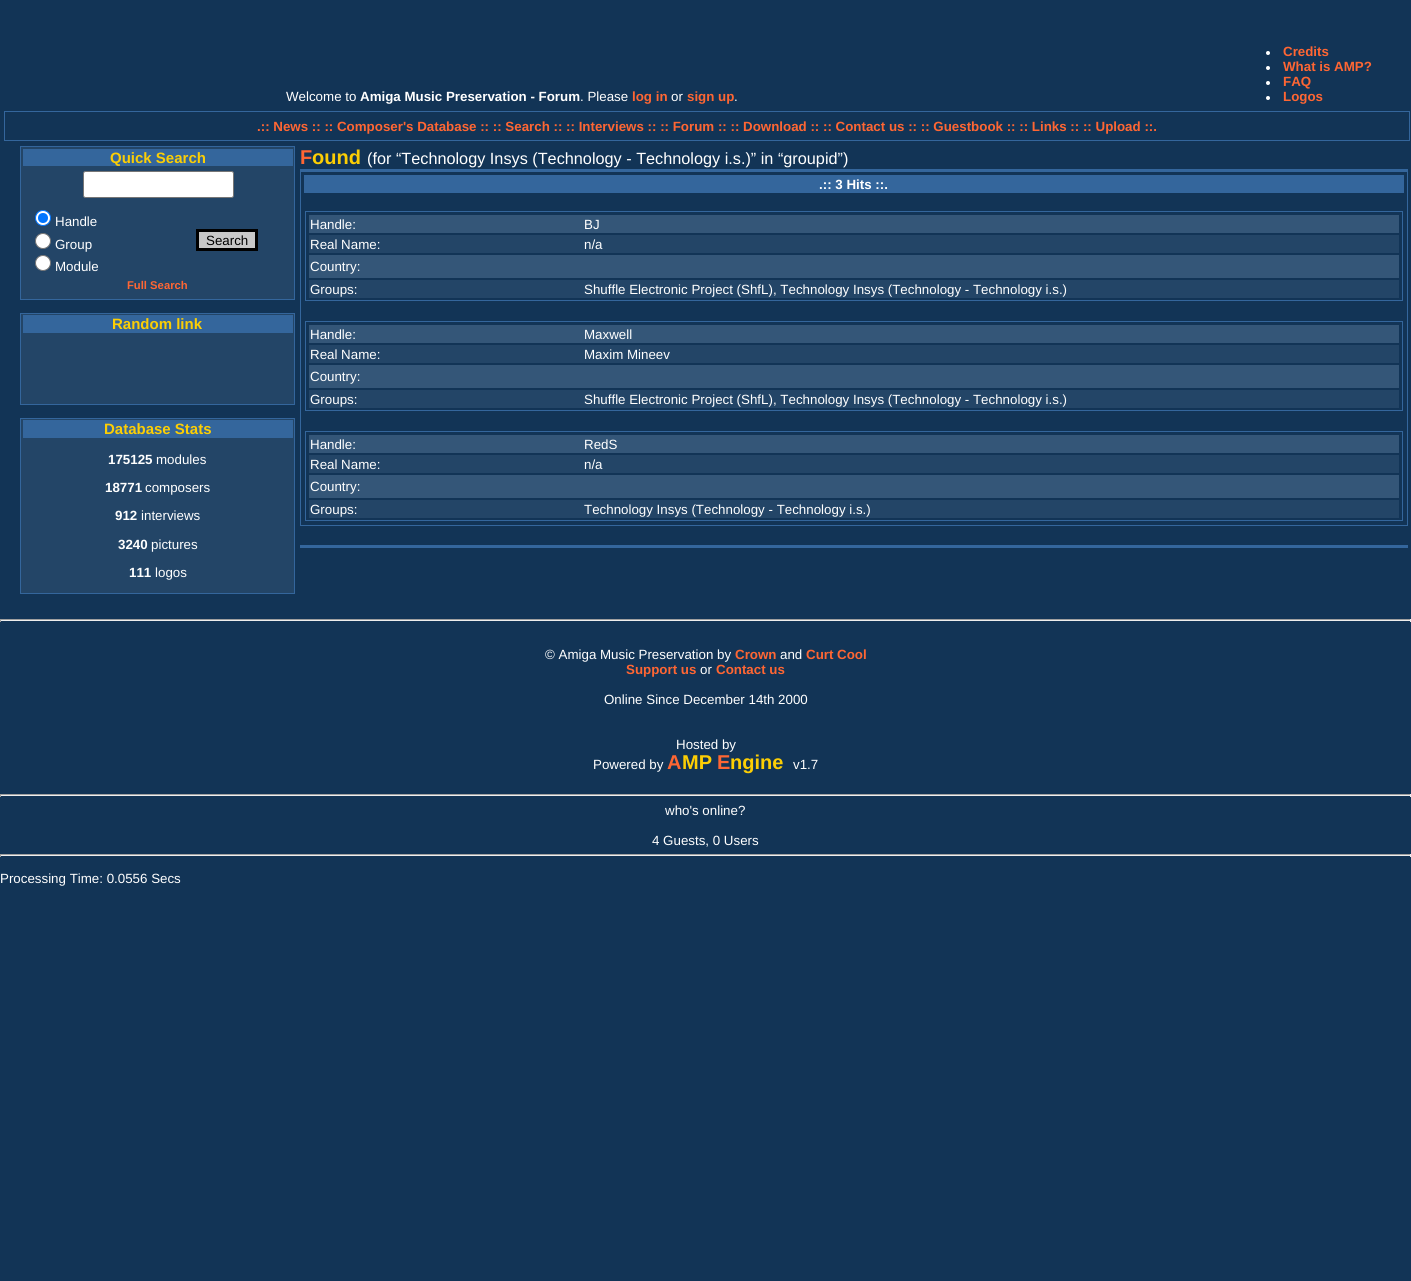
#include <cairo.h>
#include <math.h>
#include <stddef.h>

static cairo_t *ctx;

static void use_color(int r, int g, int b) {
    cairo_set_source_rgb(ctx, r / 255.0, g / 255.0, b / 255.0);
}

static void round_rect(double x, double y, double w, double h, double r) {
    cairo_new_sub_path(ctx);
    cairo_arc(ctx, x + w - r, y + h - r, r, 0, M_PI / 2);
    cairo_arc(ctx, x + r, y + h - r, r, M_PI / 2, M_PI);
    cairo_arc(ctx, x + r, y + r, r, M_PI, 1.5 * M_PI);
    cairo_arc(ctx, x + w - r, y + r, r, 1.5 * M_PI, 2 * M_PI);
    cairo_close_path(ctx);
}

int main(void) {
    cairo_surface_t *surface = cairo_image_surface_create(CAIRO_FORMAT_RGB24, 1411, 1281);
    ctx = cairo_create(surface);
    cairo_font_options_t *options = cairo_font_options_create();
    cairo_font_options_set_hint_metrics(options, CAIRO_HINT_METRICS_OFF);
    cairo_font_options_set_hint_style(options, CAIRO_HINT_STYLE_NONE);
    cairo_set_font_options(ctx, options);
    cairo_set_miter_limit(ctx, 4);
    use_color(18, 52, 86);
    cairo_paint(ctx);
    cairo_select_font_face(ctx, "Liberation Sans", CAIRO_FONT_SLANT_NORMAL, CAIRO_FONT_WEIGHT_NORMAL);
    cairo_set_font_size(ctx, 13.33);
    use_color(255, 255, 255);
    cairo_move_to(ctx, 286, 101);
    cairo_show_text(ctx, "Welcome to");
    cairo_select_font_face(ctx, "Liberation Sans", CAIRO_FONT_SLANT_NORMAL, CAIRO_FONT_WEIGHT_BOLD);
    cairo_move_to(ctx, 360, 101);
    cairo_show_text(ctx, "Amiga Music Preservation - Forum");
    cairo_select_font_face(ctx, "Liberation Sans", CAIRO_FONT_SLANT_NORMAL, CAIRO_FONT_WEIGHT_NORMAL);
    cairo_move_to(ctx, 580, 101);
    cairo_show_text(ctx, ". Please");
    cairo_select_font_face(ctx, "Liberation Sans", CAIRO_FONT_SLANT_NORMAL, CAIRO_FONT_WEIGHT_BOLD);
    use_color(255, 102, 51);
    cairo_move_to(ctx, 632, 101);
    cairo_show_text(ctx, "log in");
    cairo_select_font_face(ctx, "Liberation Sans", CAIRO_FONT_SLANT_NORMAL, CAIRO_FONT_WEIGHT_NORMAL);
    use_color(255, 255, 255);
    cairo_move_to(ctx, 671, 101);
    cairo_show_text(ctx, "or");
    cairo_select_font_face(ctx, "Liberation Sans", CAIRO_FONT_SLANT_NORMAL, CAIRO_FONT_WEIGHT_BOLD);
    use_color(255, 102, 51);
    cairo_move_to(ctx, 687, 101);
    cairo_show_text(ctx, "sign up");
    cairo_select_font_face(ctx, "Liberation Sans", CAIRO_FONT_SLANT_NORMAL, CAIRO_FONT_WEIGHT_NORMAL);
    use_color(255, 255, 255);
    cairo_move_to(ctx, 734, 101);
    cairo_show_text(ctx, ".");
    cairo_new_path(ctx);
    cairo_arc(ctx, 1268, 53, 2, 0, 2 * M_PI);
    cairo_fill(ctx);
    cairo_select_font_face(ctx, "Liberation Sans", CAIRO_FONT_SLANT_NORMAL, CAIRO_FONT_WEIGHT_BOLD);
    use_color(255, 102, 51);
    cairo_move_to(ctx, 1283, 56);
    cairo_show_text(ctx, "Credits");
    use_color(255, 255, 255);
    cairo_new_path(ctx);
    cairo_arc(ctx, 1268, 68, 2, 0, 2 * M_PI);
    cairo_fill(ctx);
    use_color(255, 102, 51);
    cairo_move_to(ctx, 1283, 71);
    cairo_show_text(ctx, "What is AMP?");
    use_color(255, 255, 255);
    cairo_new_path(ctx);
    cairo_arc(ctx, 1268, 83, 2, 0, 2 * M_PI);
    cairo_fill(ctx);
    use_color(255, 102, 51);
    cairo_move_to(ctx, 1283, 86);
    cairo_show_text(ctx, "FAQ");
    use_color(255, 255, 255);
    cairo_new_path(ctx);
    cairo_arc(ctx, 1268, 98, 2, 0, 2 * M_PI);
    cairo_fill(ctx);
    use_color(255, 102, 51);
    cairo_move_to(ctx, 1283, 101);
    cairo_show_text(ctx, "Logos");
    cairo_rectangle(ctx, 4.5, 111.5, 1405, 29);
    use_color(52, 102, 156);
    cairo_set_line_width(ctx, 1);
    cairo_stroke(ctx);
    use_color(255, 102, 51);
    cairo_move_to(ctx, 257, 131);
    cairo_show_text(ctx, ".:: News :: :: Composer's Database :: :: Search :: :: Interviews :: :: Forum :: :: Download :: :: Contact us :: :: Guestbook :: :: Links :: :: Upload ::.");
    use_color(35, 69, 103);
    cairo_rectangle(ctx, 20.5, 146.5, 274, 153);
    cairo_fill_preserve(ctx);
    use_color(52, 102, 156);
    cairo_stroke(ctx);
    cairo_rectangle(ctx, 23, 149, 270, 17);
    cairo_fill(ctx);
    cairo_set_font_size(ctx, 15);
    use_color(252, 206, 4);
    cairo_move_to(ctx, 110, 163);
    cairo_show_text(ctx, "Quick Search");
    use_color(255, 255, 255);
    round_rect(83.5, 171.5, 150, 26, 2);
    cairo_fill_preserve(ctx);
    use_color(118, 118, 118);
    cairo_stroke(ctx);
    use_color(255, 255, 255);
    cairo_arc(ctx, 43, 218, 7.5, 0, 2 * M_PI);
    cairo_fill_preserve(ctx);
    use_color(0, 117, 255);
    cairo_stroke(ctx);
    cairo_arc(ctx, 43, 218, 5, 0, 2 * M_PI);
    cairo_fill(ctx);
    cairo_select_font_face(ctx, "Liberation Sans", CAIRO_FONT_SLANT_NORMAL, CAIRO_FONT_WEIGHT_NORMAL);
    cairo_set_font_size(ctx, 13.33);
    use_color(255, 255, 255);
    cairo_move_to(ctx, 55, 226);
    cairo_show_text(ctx, "Handle");
    cairo_new_path(ctx);
    cairo_arc(ctx, 43, 241, 7.5, 0, 2 * M_PI);
    cairo_fill_preserve(ctx);
    use_color(118, 118, 118);
    cairo_stroke(ctx);
    use_color(255, 255, 255);
    cairo_move_to(ctx, 55, 249);
    cairo_show_text(ctx, "Group");
    cairo_new_path(ctx);
    cairo_arc(ctx, 43, 263, 7.5, 0, 2 * M_PI);
    cairo_fill_preserve(ctx);
    use_color(118, 118, 118);
    cairo_stroke(ctx);
    use_color(255, 255, 255);
    cairo_move_to(ctx, 55, 271);
    cairo_show_text(ctx, "Module");
    use_color(200, 200, 200);
    cairo_rectangle(ctx, 197.5, 230.5, 59, 19);
    cairo_fill_preserve(ctx);
    use_color(0, 0, 0);
    cairo_set_line_width(ctx, 3);
    cairo_stroke(ctx);
    cairo_move_to(ctx, 206, 245);
    cairo_show_text(ctx, "Search");
    cairo_select_font_face(ctx, "Liberation Sans", CAIRO_FONT_SLANT_NORMAL, CAIRO_FONT_WEIGHT_BOLD);
    cairo_set_font_size(ctx, 11.25);
    use_color(255, 102, 51);
    cairo_move_to(ctx, 127, 289);
    cairo_show_text(ctx, "Full Search");
    use_color(35, 69, 103);
    cairo_rectangle(ctx, 20.5, 313.5, 274, 91);
    cairo_fill_preserve(ctx);
    use_color(52, 102, 156);
    cairo_set_line_width(ctx, 1);
    cairo_stroke(ctx);
    cairo_rectangle(ctx, 23, 315, 270, 18);
    cairo_fill(ctx);
    cairo_set_font_size(ctx, 15);
    use_color(252, 206, 4);
    cairo_move_to(ctx, 112, 329);
    cairo_show_text(ctx, "Random link");
    use_color(35, 69, 103);
    cairo_rectangle(ctx, 20.5, 418.5, 274, 175);
    cairo_fill_preserve(ctx);
    use_color(52, 102, 156);
    cairo_stroke(ctx);
    cairo_rectangle(ctx, 23, 420, 270, 18);
    cairo_fill(ctx);
    use_color(252, 206, 4);
    cairo_move_to(ctx, 104, 434);
    cairo_show_text(ctx, "Database Stats");
    cairo_set_font_size(ctx, 13.33);
    use_color(255, 255, 255);
    cairo_move_to(ctx, 108, 464);
    cairo_show_text(ctx, "175125");
    cairo_select_font_face(ctx, "Liberation Sans", CAIRO_FONT_SLANT_NORMAL, CAIRO_FONT_WEIGHT_NORMAL);
    cairo_move_to(ctx, 156, 464);
    cairo_show_text(ctx, "modules");
    cairo_select_font_face(ctx, "Liberation Sans", CAIRO_FONT_SLANT_NORMAL, CAIRO_FONT_WEIGHT_BOLD);
    cairo_move_to(ctx, 105, 492);
    cairo_show_text(ctx, "18771");
    cairo_select_font_face(ctx, "Liberation Sans", CAIRO_FONT_SLANT_NORMAL, CAIRO_FONT_WEIGHT_NORMAL);
    cairo_move_to(ctx, 145, 492);
    cairo_show_text(ctx, "composers");
    cairo_select_font_face(ctx, "Liberation Sans", CAIRO_FONT_SLANT_NORMAL, CAIRO_FONT_WEIGHT_BOLD);
    cairo_move_to(ctx, 115, 520);
    cairo_show_text(ctx, "912");
    cairo_select_font_face(ctx, "Liberation Sans", CAIRO_FONT_SLANT_NORMAL, CAIRO_FONT_WEIGHT_NORMAL);
    cairo_move_to(ctx, 141, 520);
    cairo_show_text(ctx, "interviews");
    cairo_select_font_face(ctx, "Liberation Sans", CAIRO_FONT_SLANT_NORMAL, CAIRO_FONT_WEIGHT_BOLD);
    cairo_move_to(ctx, 118, 549);
    cairo_show_text(ctx, "3240");
    cairo_select_font_face(ctx, "Liberation Sans", CAIRO_FONT_SLANT_NORMAL, CAIRO_FONT_WEIGHT_NORMAL);
    cairo_move_to(ctx, 151, 549);
    cairo_show_text(ctx, "pictures");
    cairo_select_font_face(ctx, "Liberation Sans", CAIRO_FONT_SLANT_NORMAL, CAIRO_FONT_WEIGHT_BOLD);
    cairo_move_to(ctx, 129, 577);
    cairo_show_text(ctx, "111");
    cairo_select_font_face(ctx, "Liberation Sans", CAIRO_FONT_SLANT_NORMAL, CAIRO_FONT_WEIGHT_NORMAL);
    cairo_move_to(ctx, 155, 577);
    cairo_show_text(ctx, "logos");
    cairo_select_font_face(ctx, "Liberation Sans", CAIRO_FONT_SLANT_NORMAL, CAIRO_FONT_WEIGHT_BOLD);
    cairo_set_font_size(ctx, 20);
    use_color(255, 102, 51);
    cairo_move_to(ctx, 300, 164);
    cairo_show_text(ctx, "F");
    use_color(252, 206, 4);
    cairo_move_to(ctx, 312, 164);
    cairo_show_text(ctx, "ound");
    cairo_select_font_face(ctx, "Liberation Sans", CAIRO_FONT_SLANT_NORMAL, CAIRO_FONT_WEIGHT_NORMAL);
    cairo_set_font_size(ctx, 16.25);
    use_color(255, 255, 255);
    cairo_move_to(ctx, 367, 164);
    cairo_show_text(ctx, "(for “Technology Insys (Technology - Technology i.s.)” in “groupid”)");
    use_color(52, 102, 156);
    cairo_rectangle(ctx, 300, 169, 1108, 2);
    cairo_fill(ctx);
    cairo_rectangle(ctx, 300.5, 171.5, 1107, 354);
    cairo_stroke(ctx);
    cairo_rectangle(ctx, 304, 175, 1100, 18);
    cairo_fill(ctx);
    cairo_select_font_face(ctx, "Liberation Sans", CAIRO_FONT_SLANT_NORMAL, CAIRO_FONT_WEIGHT_BOLD);
    cairo_set_font_size(ctx, 13.33);
    use_color(255, 255, 255);
    cairo_move_to(ctx, 819, 189);
    cairo_show_text(ctx, ".:: 3 Hits ::.");
    cairo_rectangle(ctx, 305.5, 211.5, 1097, 89);
    use_color(52, 102, 156);
    cairo_stroke(ctx);
    use_color(52, 86, 120);
    cairo_rectangle(ctx, 309, 215, 1090, 18);
    cairo_fill(ctx);
    cairo_select_font_face(ctx, "Liberation Sans", CAIRO_FONT_SLANT_NORMAL, CAIRO_FONT_WEIGHT_NORMAL);
    use_color(255, 255, 255);
    cairo_move_to(ctx, 310, 229);
    cairo_show_text(ctx, "Handle:");
    cairo_move_to(ctx, 584, 229);
    cairo_show_text(ctx, "BJ");
    use_color(35, 69, 103);
    cairo_rectangle(ctx, 309, 235, 1090, 18);
    cairo_fill(ctx);
    use_color(255, 255, 255);
    cairo_move_to(ctx, 310, 249);
    cairo_show_text(ctx, "Real Name:");
    cairo_move_to(ctx, 584, 249);
    cairo_show_text(ctx, "n/a");
    use_color(52, 86, 120);
    cairo_rectangle(ctx, 309, 255, 1090, 23);
    cairo_fill(ctx);
    use_color(255, 255, 255);
    cairo_move_to(ctx, 310, 271);
    cairo_show_text(ctx, "Country:");
    use_color(35, 69, 103);
    cairo_rectangle(ctx, 309, 280, 1090, 18);
    cairo_fill(ctx);
    use_color(255, 255, 255);
    cairo_move_to(ctx, 310, 294);
    cairo_show_text(ctx, "Groups:");
    cairo_move_to(ctx, 584, 294);
    cairo_show_text(ctx, "Shuffle Electronic Project (ShfL), Technology Insys (Technology - Technology i.s.)");
    cairo_rectangle(ctx, 305.5, 321.5, 1097, 89);
    use_color(52, 102, 156);
    cairo_stroke(ctx);
    use_color(52, 86, 120);
    cairo_rectangle(ctx, 309, 325, 1090, 18);
    cairo_fill(ctx);
    use_color(255, 255, 255);
    cairo_move_to(ctx, 310, 339);
    cairo_show_text(ctx, "Handle:");
    cairo_move_to(ctx, 584, 339);
    cairo_show_text(ctx, "Maxwell");
    use_color(35, 69, 103);
    cairo_rectangle(ctx, 309, 345, 1090, 18);
    cairo_fill(ctx);
    use_color(255, 255, 255);
    cairo_move_to(ctx, 310, 359);
    cairo_show_text(ctx, "Real Name:");
    cairo_move_to(ctx, 584, 359);
    cairo_show_text(ctx, "Maxim Mineev");
    use_color(52, 86, 120);
    cairo_rectangle(ctx, 309, 365, 1090, 23);
    cairo_fill(ctx);
    use_color(255, 255, 255);
    cairo_move_to(ctx, 310, 381);
    cairo_show_text(ctx, "Country:");
    use_color(35, 69, 103);
    cairo_rectangle(ctx, 309, 390, 1090, 18);
    cairo_fill(ctx);
    use_color(255, 255, 255);
    cairo_move_to(ctx, 310, 404);
    cairo_show_text(ctx, "Groups:");
    cairo_move_to(ctx, 584, 404);
    cairo_show_text(ctx, "Shuffle Electronic Project (ShfL), Technology Insys (Technology - Technology i.s.)");
    cairo_rectangle(ctx, 305.5, 431.5, 1097, 89);
    use_color(52, 102, 156);
    cairo_stroke(ctx);
    use_color(52, 86, 120);
    cairo_rectangle(ctx, 309, 435, 1090, 18);
    cairo_fill(ctx);
    use_color(255, 255, 255);
    cairo_move_to(ctx, 310, 449);
    cairo_show_text(ctx, "Handle:");
    cairo_move_to(ctx, 584, 449);
    cairo_show_text(ctx, "RedS");
    use_color(35, 69, 103);
    cairo_rectangle(ctx, 309, 455, 1090, 18);
    cairo_fill(ctx);
    use_color(255, 255, 255);
    cairo_move_to(ctx, 310, 469);
    cairo_show_text(ctx, "Real Name:");
    cairo_move_to(ctx, 584, 469);
    cairo_show_text(ctx, "n/a");
    use_color(52, 86, 120);
    cairo_rectangle(ctx, 309, 475, 1090, 23);
    cairo_fill(ctx);
    use_color(255, 255, 255);
    cairo_move_to(ctx, 310, 491);
    cairo_show_text(ctx, "Country:");
    use_color(35, 69, 103);
    cairo_rectangle(ctx, 309, 500, 1090, 18);
    cairo_fill(ctx);
    use_color(255, 255, 255);
    cairo_move_to(ctx, 310, 514);
    cairo_show_text(ctx, "Groups:");
    cairo_move_to(ctx, 584, 514);
    cairo_show_text(ctx, "Technology Insys (Technology - Technology i.s.)");
    use_color(52, 102, 156);
    cairo_rectangle(ctx, 300, 545, 1108, 3);
    cairo_fill(ctx);
    use_color(159, 159, 159);
    cairo_rectangle(ctx, 0, 619, 1411, 1);
    cairo_fill(ctx);
    use_color(238, 238, 238);
    cairo_rectangle(ctx, 1410, 619, 1, 3);
    cairo_fill(ctx);
    cairo_rectangle(ctx, 0, 620, 1411, 1);
    cairo_fill(ctx);
    use_color(159, 159, 159);
    cairo_rectangle(ctx, 0, 619, 1, 3);
    cairo_fill(ctx);
    use_color(255, 255, 255);
    cairo_move_to(ctx, 545, 659);
    cairo_show_text(ctx, "© Amiga Music Preservation by");
    cairo_select_font_face(ctx, "Liberation Sans", CAIRO_FONT_SLANT_NORMAL, CAIRO_FONT_WEIGHT_BOLD);
    use_color(255, 102, 51);
    cairo_move_to(ctx, 735, 659);
    cairo_show_text(ctx, "Crown");
    cairo_select_font_face(ctx, "Liberation Sans", CAIRO_FONT_SLANT_NORMAL, CAIRO_FONT_WEIGHT_NORMAL);
    use_color(255, 255, 255);
    cairo_move_to(ctx, 780, 659);
    cairo_show_text(ctx, "and");
    cairo_select_font_face(ctx, "Liberation Sans", CAIRO_FONT_SLANT_NORMAL, CAIRO_FONT_WEIGHT_BOLD);
    use_color(255, 102, 51);
    cairo_move_to(ctx, 806, 659);
    cairo_show_text(ctx, "Curt Cool");
    cairo_move_to(ctx, 626, 674);
    cairo_show_text(ctx, "Support us");
    cairo_select_font_face(ctx, "Liberation Sans", CAIRO_FONT_SLANT_NORMAL, CAIRO_FONT_WEIGHT_NORMAL);
    use_color(255, 255, 255);
    cairo_move_to(ctx, 700, 674);
    cairo_show_text(ctx, "or");
    cairo_select_font_face(ctx, "Liberation Sans", CAIRO_FONT_SLANT_NORMAL, CAIRO_FONT_WEIGHT_BOLD);
    use_color(255, 102, 51);
    cairo_move_to(ctx, 716, 674);
    cairo_show_text(ctx, "Contact us");
    cairo_select_font_face(ctx, "Liberation Sans", CAIRO_FONT_SLANT_NORMAL, CAIRO_FONT_WEIGHT_NORMAL);
    use_color(255, 255, 255);
    cairo_move_to(ctx, 604, 704);
    cairo_show_text(ctx, "Online Since December 14th 2000");
    cairo_move_to(ctx, 676, 749);
    cairo_show_text(ctx, "Hosted by");
    cairo_move_to(ctx, 593, 769);
    cairo_show_text(ctx, "Powered by");
    cairo_select_font_face(ctx, "Liberation Sans", CAIRO_FONT_SLANT_NORMAL, CAIRO_FONT_WEIGHT_BOLD);
    cairo_set_font_size(ctx, 20);
    use_color(255, 102, 51);
    cairo_move_to(ctx, 667, 769);
    cairo_show_text(ctx, "A");
    use_color(252, 206, 4);
    cairo_move_to(ctx, 682, 769);
    cairo_show_text(ctx, "MP");
    use_color(255, 102, 51);
    cairo_move_to(ctx, 717, 769);
    cairo_show_text(ctx, "E");
    use_color(252, 206, 4);
    cairo_move_to(ctx, 730, 769);
    cairo_show_text(ctx, "ngine");
    cairo_select_font_face(ctx, "Liberation Sans", CAIRO_FONT_SLANT_NORMAL, CAIRO_FONT_WEIGHT_NORMAL);
    cairo_set_font_size(ctx, 13.33);
    use_color(255, 255, 255);
    cairo_move_to(ctx, 793, 769);
    cairo_show_text(ctx, "v1.7");
    use_color(159, 159, 159);
    cairo_rectangle(ctx, 0, 794, 1411, 1);
    cairo_fill(ctx);
    use_color(238, 238, 238);
    cairo_rectangle(ctx, 1410, 794, 1, 3);
    cairo_fill(ctx);
    cairo_rectangle(ctx, 0, 795, 1411, 1);
    cairo_fill(ctx);
    use_color(159, 159, 159);
    cairo_rectangle(ctx, 0, 794, 1, 3);
    cairo_fill(ctx);
    use_color(255, 255, 255);
    cairo_move_to(ctx, 665, 815);
    cairo_show_text(ctx, "who's online?");
    cairo_move_to(ctx, 652, 845);
    cairo_show_text(ctx, "4 Guests, 0 Users");
    use_color(159, 159, 159);
    cairo_rectangle(ctx, 0, 854, 1411, 1);
    cairo_fill(ctx);
    use_color(238, 238, 238);
    cairo_rectangle(ctx, 1410, 854, 1, 3);
    cairo_fill(ctx);
    cairo_rectangle(ctx, 0, 855, 1411, 1);
    cairo_fill(ctx);
    use_color(159, 159, 159);
    cairo_rectangle(ctx, 0, 854, 1, 3);
    cairo_fill(ctx);
    use_color(255, 255, 255);
    cairo_move_to(ctx, 0, 883);
    cairo_show_text(ctx, "Processing Time: 0.0556 Secs");
    cairo_surface_write_to_png(surface, "result.png");
    cairo_font_options_destroy(options);
    cairo_destroy(ctx);
    cairo_surface_destroy(surface);
    return 0;
}
